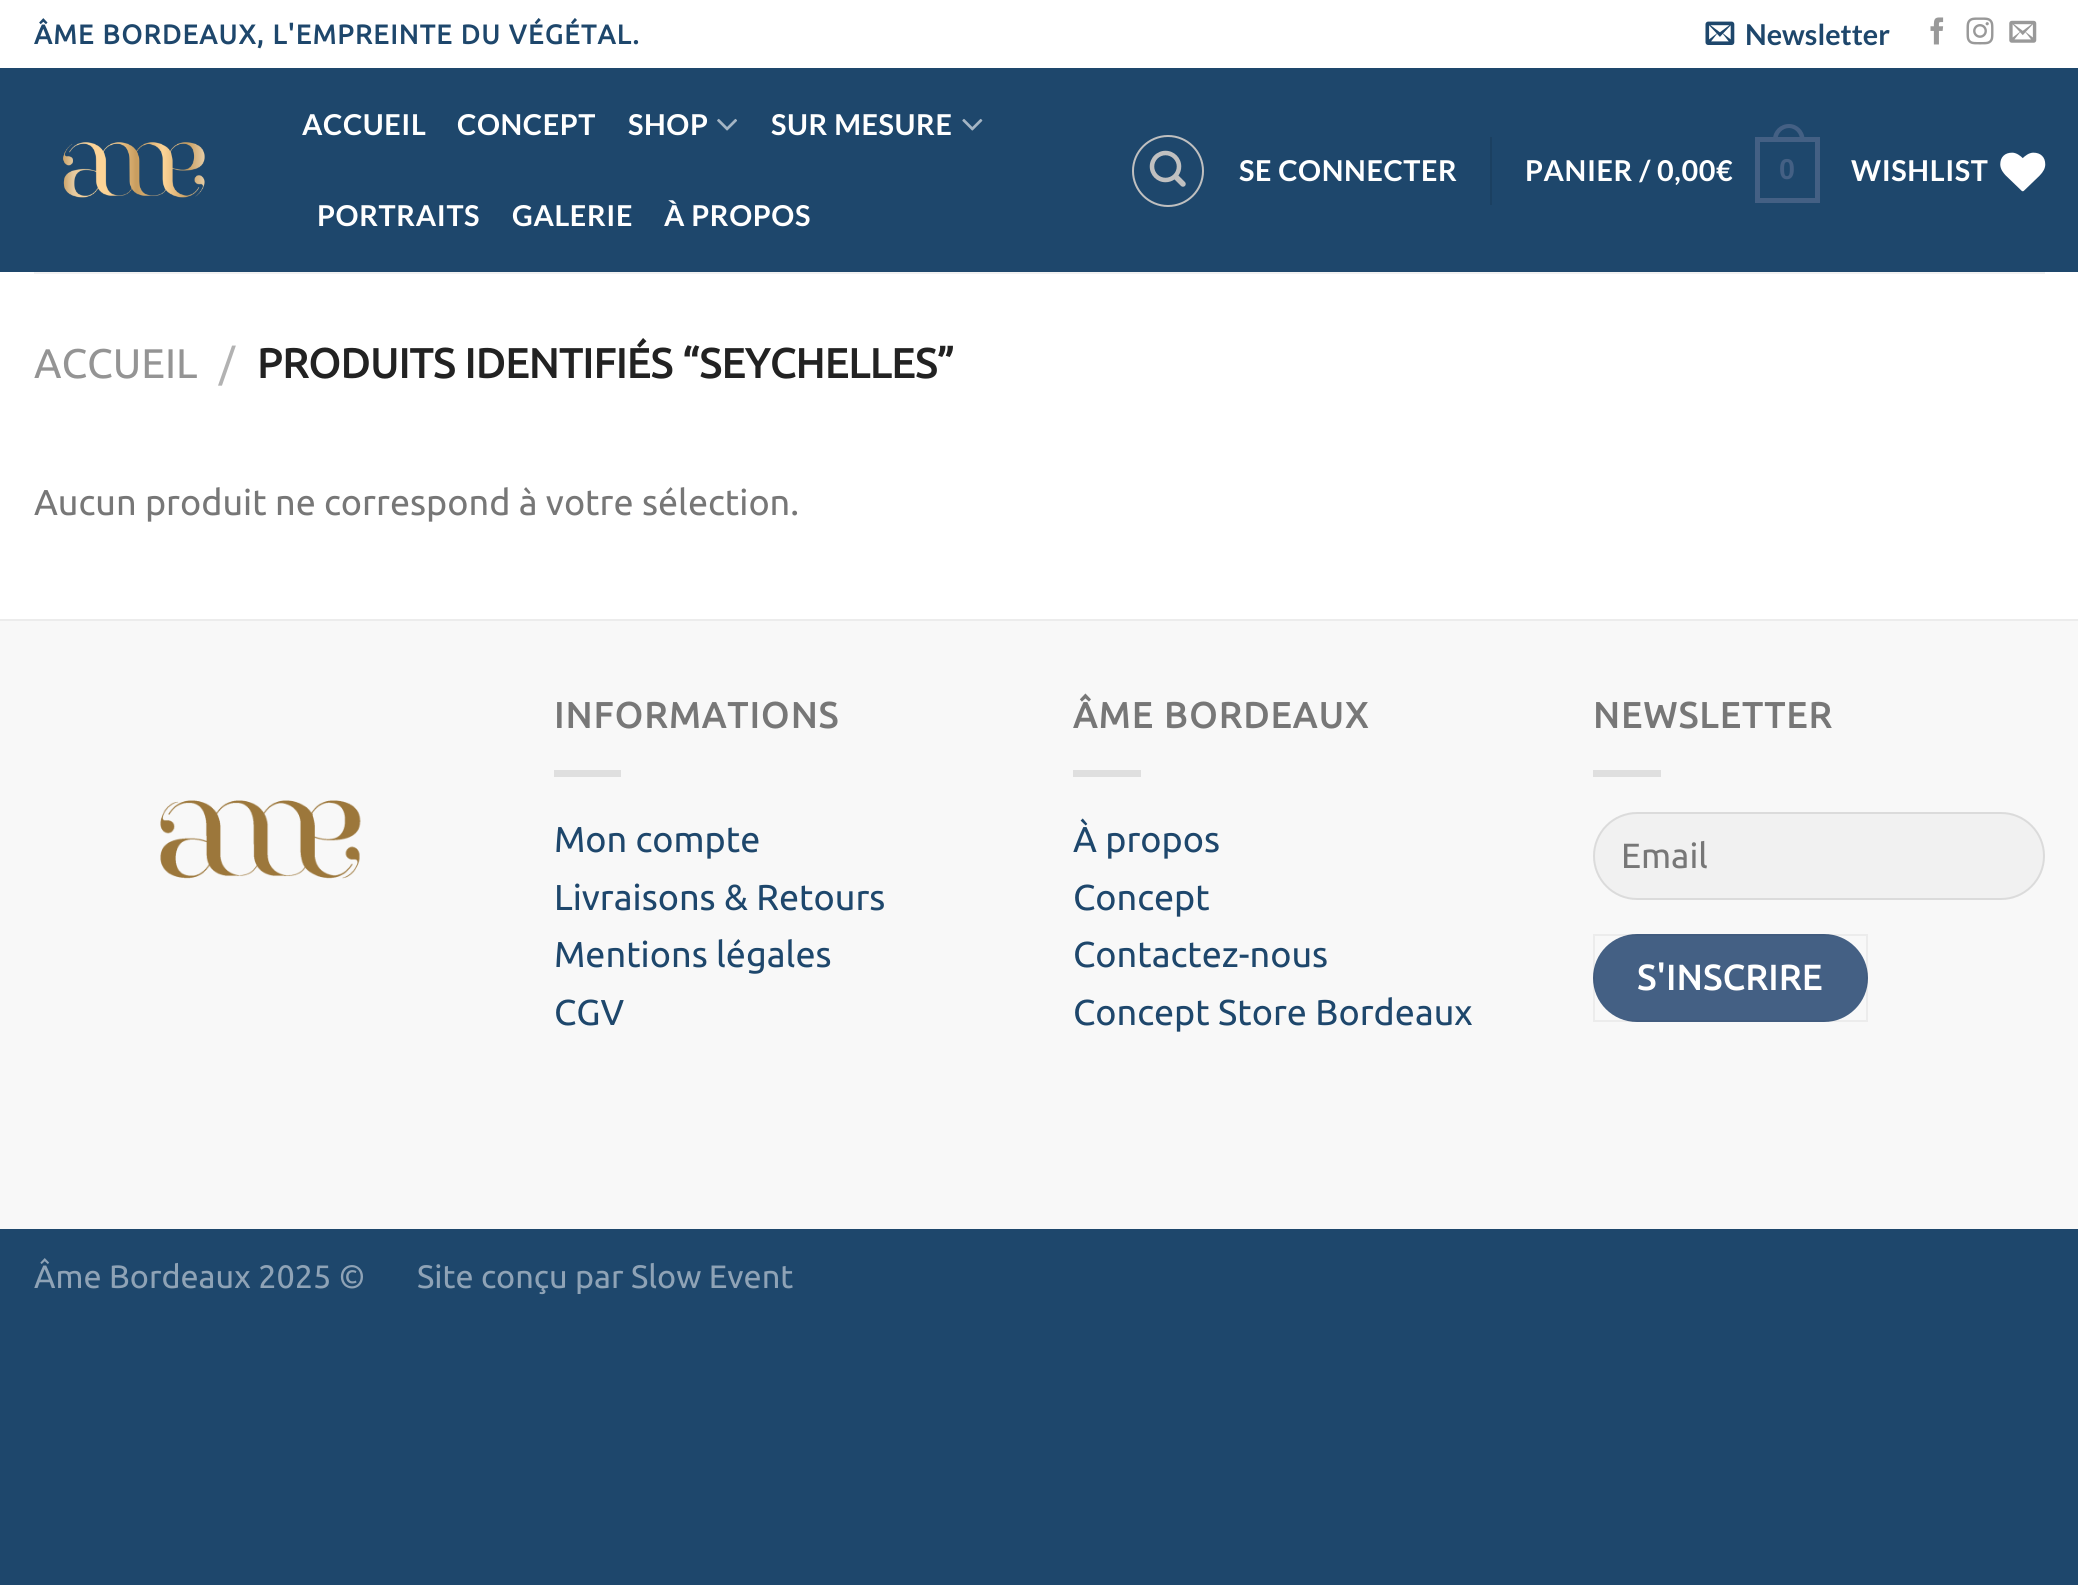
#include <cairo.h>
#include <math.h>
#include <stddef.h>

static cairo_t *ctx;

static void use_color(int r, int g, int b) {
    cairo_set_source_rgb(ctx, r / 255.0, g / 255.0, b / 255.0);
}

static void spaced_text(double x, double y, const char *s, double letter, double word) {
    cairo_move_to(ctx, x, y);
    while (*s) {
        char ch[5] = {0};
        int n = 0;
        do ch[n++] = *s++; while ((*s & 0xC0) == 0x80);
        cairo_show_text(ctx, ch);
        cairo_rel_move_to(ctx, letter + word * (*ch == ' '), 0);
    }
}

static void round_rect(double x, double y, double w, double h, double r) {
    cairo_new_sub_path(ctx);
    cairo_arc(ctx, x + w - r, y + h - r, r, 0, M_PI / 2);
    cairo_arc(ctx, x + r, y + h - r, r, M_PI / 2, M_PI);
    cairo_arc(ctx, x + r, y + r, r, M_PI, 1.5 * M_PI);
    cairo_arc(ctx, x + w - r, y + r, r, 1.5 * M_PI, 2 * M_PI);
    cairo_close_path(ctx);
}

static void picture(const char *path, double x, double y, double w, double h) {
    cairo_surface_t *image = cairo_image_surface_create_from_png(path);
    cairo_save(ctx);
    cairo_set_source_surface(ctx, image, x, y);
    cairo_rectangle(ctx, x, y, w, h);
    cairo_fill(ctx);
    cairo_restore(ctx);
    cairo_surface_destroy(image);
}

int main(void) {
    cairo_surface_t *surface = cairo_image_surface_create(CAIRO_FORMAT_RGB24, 2078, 1585);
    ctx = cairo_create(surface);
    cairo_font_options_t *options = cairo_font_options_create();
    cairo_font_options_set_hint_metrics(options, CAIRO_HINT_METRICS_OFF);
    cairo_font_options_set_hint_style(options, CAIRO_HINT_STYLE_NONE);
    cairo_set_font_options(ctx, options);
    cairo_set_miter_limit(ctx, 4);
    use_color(30, 71, 108);
    cairo_paint(ctx);
    use_color(255, 255, 255);
    cairo_rectangle(ctx, 0, 272, 2078, 347);
    cairo_fill(ctx);
    cairo_rectangle(ctx, 0, 0, 2078, 68);
    cairo_fill(ctx);
    cairo_select_font_face(ctx, "Ubuntu", CAIRO_FONT_SLANT_NORMAL, CAIRO_FONT_WEIGHT_BOLD);
    cairo_set_font_size(ctx, 27);
    use_color(30, 71, 108);
    spaced_text(34, 44, "ÂME BORDEAUX, L'EMPREINTE DU VÉGÉTAL.", 1.35, 0);
    picture("img1.png", 1705, 21, 30, 24);
    cairo_select_font_face(ctx, "Lato", CAIRO_FONT_SLANT_NORMAL, CAIRO_FONT_WEIGHT_BOLD);
    cairo_set_font_size(ctx, 28.75);
    cairo_move_to(ctx, 1745, 45);
    cairo_show_text(ctx, "Newsletter");
    picture("img2.png", 1930, 17, 14, 28);
    picture("img3.png", 1966, 17, 28, 28);
    picture("img4.png", 2009, 20, 28, 23);
    picture("img5.png", 63, 142, 142, 56);
    use_color(255, 255, 255);
    spaced_text(302, 135, "ACCUEIL", 0.6, 0);
    spaced_text(457, 135, "CONCEPT", 0.6, 0);
    spaced_text(628, 135, "SHOP", 0.6, 0);
    picture("img6.png", 717, 118, 20, 13);
    spaced_text(771, 135, "SUR MESURE", 0.6, 0);
    picture("img7.png", 962, 118, 21, 13);
    spaced_text(317, 226, "PORTRAITS", 0.6, 0);
    spaced_text(512, 226, "GALERIE", 0.6, 0);
    spaced_text(664, 226, "À PROPOS", 0.6, 0);
    cairo_new_path(ctx);
    cairo_arc(ctx, 1168, 171, 35, 0, 2 * M_PI);
    use_color(192, 192, 192);
    cairo_stroke(ctx);
    picture("img8.png", 1149, 150, 37, 37);
    use_color(255, 255, 255);
    spaced_text(1239, 181, "SE CONNECTER", 0.6, 0);
    use_color(27, 64, 97);
    cairo_rectangle(ctx, 1490, 137, 2, 68);
    cairo_fill(ctx);
    use_color(255, 255, 255);
    spaced_text(1525, 181, "PANIER / 0,00€", 0.6, 0);
    cairo_rectangle(ctx, 1757.5, 139.5, 60, 61);
    use_color(68, 96, 132);
    cairo_set_line_width(ctx, 5);
    cairo_stroke(ctx);
    cairo_set_fill_rule(ctx, CAIRO_FILL_RULE_EVEN_ODD);
    cairo_new_path(ctx);
    cairo_move_to(ctx, 1789, 124);
    cairo_curve_to(ctx, 1797.5, 124, 1804.5, 131, 1804.5, 139.5);
    cairo_line_to(ctx, 1804.5, 142);
    cairo_line_to(ctx, 1773, 142);
    cairo_line_to(ctx, 1773, 139.5);
    cairo_curve_to(ctx, 1773, 131, 1780, 124, 1789, 124);
    cairo_close_path(ctx);
    cairo_move_to(ctx, 1789, 128);
    cairo_curve_to(ctx, 1795, 128, 1800, 133.5, 1800, 139.5);
    cairo_line_to(ctx, 1800, 142);
    cairo_line_to(ctx, 1777.5, 142);
    cairo_line_to(ctx, 1777.5, 139.5);
    cairo_curve_to(ctx, 1777.5, 133.5, 1782.5, 128, 1789, 128);
    cairo_close_path(ctx);
    cairo_fill(ctx);
    cairo_select_font_face(ctx, "Liberation Sans", CAIRO_FONT_SLANT_NORMAL, CAIRO_FONT_WEIGHT_BOLD);
    spaced_text(1779, 179, "0", 0.6, 0);
    cairo_select_font_face(ctx, "Lato", CAIRO_FONT_SLANT_NORMAL, CAIRO_FONT_WEIGHT_BOLD);
    use_color(255, 255, 255);
    spaced_text(1851, 181, "WISHLIST", 0.6, 0);
    picture("img9.png", 2000, 152, 46, 40);
    use_color(241, 241, 241);
    cairo_rectangle(ctx, 34, 272, 2011, 2);
    cairo_fill(ctx);
    cairo_select_font_face(ctx, "Ubuntu", CAIRO_FONT_SLANT_NORMAL, CAIRO_FONT_WEIGHT_NORMAL);
    cairo_set_font_size(ctx, 41.4);
    use_color(148, 148, 148);
    cairo_move_to(ctx, 34, 378);
    cairo_show_text(ctx, "ACCUEIL");
    use_color(178, 178, 178);
    cairo_move_to(ctx, 219, 378);
    cairo_show_text(ctx, "/");
    cairo_select_font_face(ctx, "Ubuntu", CAIRO_FONT_SLANT_NORMAL, CAIRO_FONT_WEIGHT_BOLD);
    use_color(34, 34, 34);
    cairo_move_to(ctx, 257, 378);
    cairo_show_text(ctx, "PRODUITS IDENTIFIÉS “SEYCHELLES”");
    cairo_select_font_face(ctx, "Ubuntu", CAIRO_FONT_SLANT_NORMAL, CAIRO_FONT_WEIGHT_NORMAL);
    cairo_set_font_size(ctx, 36);
    use_color(119, 119, 119);
    cairo_move_to(ctx, 34, 515);
    cairo_show_text(ctx, "Aucun produit ne correspond à votre sélection.");
    use_color(248, 248, 248);
    cairo_rectangle(ctx, 0, 621, 2078, 608);
    cairo_fill(ctx);
    use_color(236, 236, 236);
    cairo_rectangle(ctx, 0, 619, 2078, 2);
    cairo_fill(ctx);
    picture("img10.png", 160, 800, 201, 79);
    cairo_select_font_face(ctx, "Ubuntu", CAIRO_FONT_SLANT_NORMAL, CAIRO_FONT_WEIGHT_BOLD);
    use_color(119, 119, 119);
    spaced_text(554, 728, "INFORMATIONS", 1.75, 0);
    use_color(223, 223, 223);
    cairo_rectangle(ctx, 554, 770, 67, 7);
    cairo_fill(ctx);
    cairo_select_font_face(ctx, "Ubuntu", CAIRO_FONT_SLANT_NORMAL, CAIRO_FONT_WEIGHT_NORMAL);
    use_color(30, 71, 108);
    cairo_move_to(ctx, 554, 852);
    cairo_show_text(ctx, "Mon compte");
    cairo_move_to(ctx, 554, 910);
    cairo_show_text(ctx, "Livraisons & Retours");
    cairo_move_to(ctx, 554, 967);
    cairo_show_text(ctx, "Mentions légales");
    cairo_move_to(ctx, 554, 1025);
    cairo_show_text(ctx, "CGV");
    cairo_select_font_face(ctx, "Ubuntu", CAIRO_FONT_SLANT_NORMAL, CAIRO_FONT_WEIGHT_BOLD);
    use_color(119, 119, 119);
    spaced_text(1073, 728, "ÂME BORDEAUX", 1.75, 0);
    use_color(223, 223, 223);
    cairo_rectangle(ctx, 1073, 770, 68, 7);
    cairo_fill(ctx);
    cairo_select_font_face(ctx, "Ubuntu", CAIRO_FONT_SLANT_NORMAL, CAIRO_FONT_WEIGHT_NORMAL);
    use_color(30, 71, 108);
    cairo_move_to(ctx, 1073, 852);
    cairo_show_text(ctx, "À propos");
    cairo_move_to(ctx, 1073, 910);
    cairo_show_text(ctx, "Concept");
    cairo_move_to(ctx, 1073, 967);
    cairo_show_text(ctx, "Contactez-nous");
    cairo_move_to(ctx, 1073, 1025);
    cairo_show_text(ctx, "Concept Store Bordeaux");
    cairo_select_font_face(ctx, "Ubuntu", CAIRO_FONT_SLANT_NORMAL, CAIRO_FONT_WEIGHT_BOLD);
    use_color(119, 119, 119);
    spaced_text(1593, 728, "NEWSLETTER", 1.75, 0);
    use_color(223, 223, 223);
    cairo_rectangle(ctx, 1593, 770, 68, 7);
    cairo_fill(ctx);
    use_color(241, 241, 241);
    round_rect(1593, 812, 452, 88, 44);
    cairo_fill(ctx);
    round_rect(1594, 813, 450, 86, 43);
    cairo_set_source_rgba(ctx, 0, 0, 0, 0.09);
    cairo_set_line_width(ctx, 2);
    cairo_stroke(ctx);
    cairo_select_font_face(ctx, "Ubuntu", CAIRO_FONT_SLANT_NORMAL, CAIRO_FONT_WEIGHT_NORMAL);
    cairo_set_font_size(ctx, 35);
    use_color(119, 119, 119);
    cairo_move_to(ctx, 1621, 868);
    cairo_show_text(ctx, "Email");
    use_color(68, 96, 132);
    round_rect(1593, 934, 275, 88, 44);
    cairo_fill(ctx);
    cairo_rectangle(ctx, 1594, 935, 273, 86);
    cairo_set_source_rgba(ctx, 0, 0, 0, 0.05);
    cairo_stroke(ctx);
    cairo_select_font_face(ctx, "Ubuntu", CAIRO_FONT_SLANT_NORMAL, CAIRO_FONT_WEIGHT_BOLD);
    use_color(255, 255, 255);
    spaced_text(1637, 990, "S'INSCRIRE", 1, 0);
    cairo_select_font_face(ctx, "Ubuntu", CAIRO_FONT_SLANT_NORMAL, CAIRO_FONT_WEIGHT_NORMAL);
    cairo_set_font_size(ctx, 32.4);
    use_color(143, 163, 182);
    cairo_move_to(ctx, 34, 1288);
    cairo_show_text(ctx, "Âme Bordeaux 2025 ©");
    cairo_move_to(ctx, 417, 1288);
    cairo_show_text(ctx, "Site conçu par Slow Event");
    cairo_surface_write_to_png(surface, "result.png");
    cairo_font_options_destroy(options);
    cairo_destroy(ctx);
    cairo_surface_destroy(surface);
    return 0;
}
